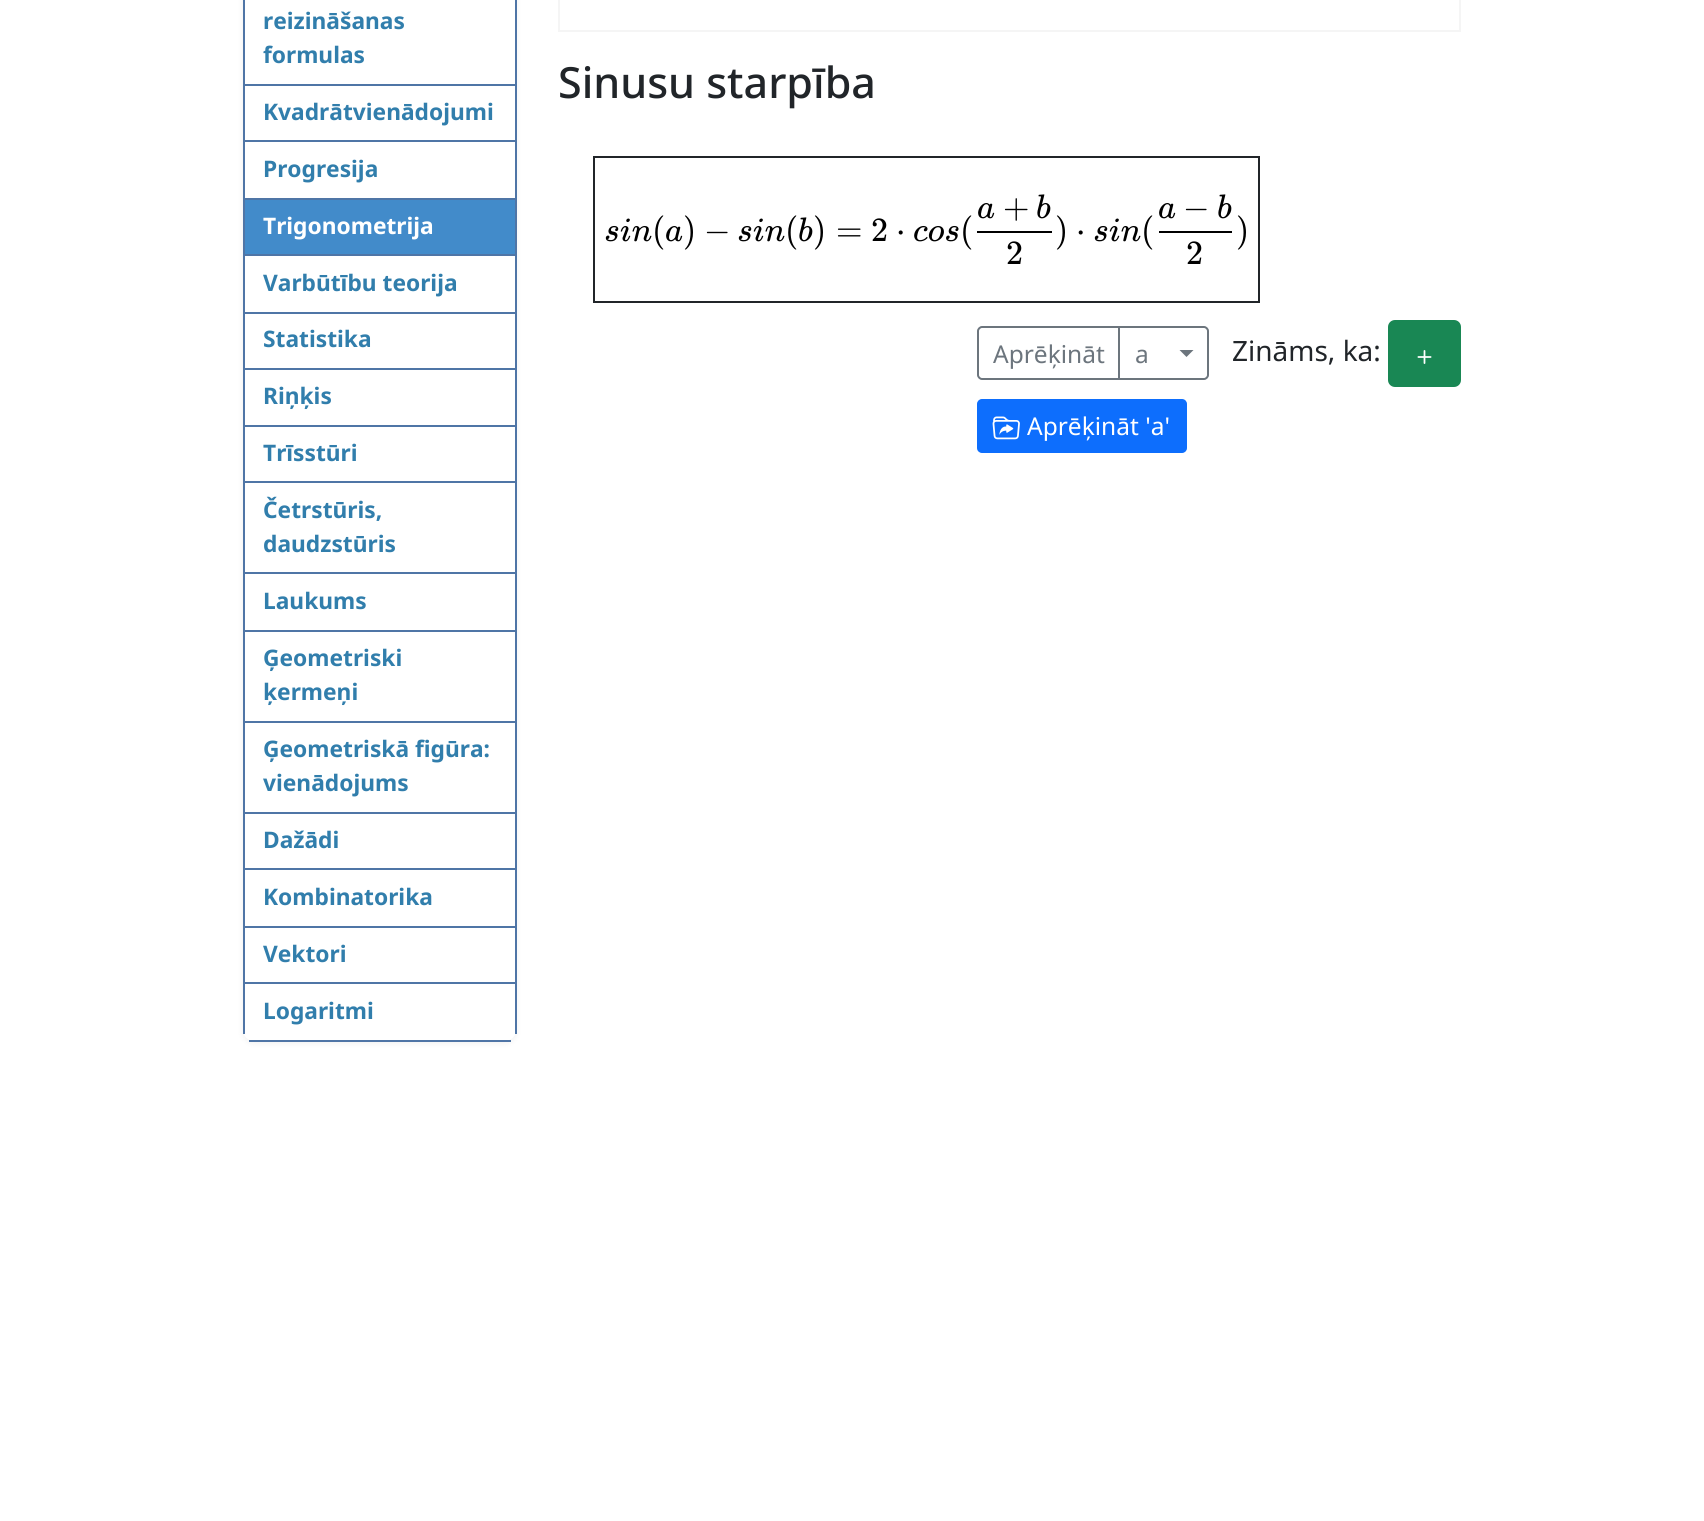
#include <cairo.h>
#include <math.h>
#include <stddef.h>

static cairo_t *ctx;

static void use_color(int r, int g, int b) {
    cairo_set_source_rgb(ctx, r / 255.0, g / 255.0, b / 255.0);
}

static void round_rect(double x, double y, double w, double h, double r) {
    cairo_new_sub_path(ctx);
    cairo_arc(ctx, x + w - r, y + h - r, r, 0, M_PI / 2);
    cairo_arc(ctx, x + r, y + h - r, r, M_PI / 2, M_PI);
    cairo_arc(ctx, x + r, y + r, r, M_PI, 1.5 * M_PI);
    cairo_arc(ctx, x + w - r, y + r, r, 1.5 * M_PI, 2 * M_PI);
    cairo_close_path(ctx);
}

static void shadow(double x, double y, double w, double h, double r, double blur, double alpha) {
    cairo_push_group_with_content(ctx, CAIRO_CONTENT_ALPHA);
    cairo_set_operator(ctx, CAIRO_OPERATOR_SOURCE);
    for (int i = 15; i >= -15 && fmin(w, h) + blur * i / 3 > 0; i -= 2) {
        double e = blur * i / 6;
        cairo_set_source_rgba(ctx, 0, 0, 0, alpha * erfc((i - 1) / 8.5) / 2);
        round_rect(x - e, y - e, w + 2 * e, h + 2 * e, fmax(0, fmin(r + e + blur * .6, fmin(w, h) / 2 + e)));
        cairo_fill(ctx);
    }
    cairo_pattern_t *soft = cairo_pop_group(ctx);
    cairo_mask(ctx, soft);
    cairo_pattern_destroy(soft);
}

static void picture(const char *path, double x, double y, double w, double h) {
    cairo_surface_t *image = cairo_image_surface_create_from_png(path);
    cairo_save(ctx);
    cairo_set_source_surface(ctx, image, x, y);
    cairo_rectangle(ctx, x, y, w, h);
    cairo_fill(ctx);
    cairo_restore(ctx);
    cairo_surface_destroy(image);
}

int main(void) {
    cairo_surface_t *surface = cairo_image_surface_create(CAIRO_FORMAT_RGB24, 1704, 1521);
    ctx = cairo_create(surface);
    cairo_font_options_t *options = cairo_font_options_create();
    cairo_font_options_set_hint_metrics(options, CAIRO_HINT_METRICS_OFF);
    cairo_font_options_set_hint_style(options, CAIRO_HINT_STYLE_NONE);
    cairo_set_font_options(ctx, options);
    cairo_set_miter_limit(ctx, 4);
    use_color(255, 255, 255);
    cairo_paint(ctx);
    use_color(0, 0, 0);
    shadow(243, -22, 273, 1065, 11, 3.5, 0.07);
    use_color(255, 255, 255);
    round_rect(243, -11, 273, 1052, 11);
    cairo_fill(ctx);
    use_color(79, 117, 166);
    cairo_rectangle(ctx, 249, 1040, 262, 2);
    cairo_fill(ctx);
    cairo_rectangle(ctx, 515, 0, 2, 84);
    cairo_fill(ctx);
    cairo_rectangle(ctx, 243, 0, 2, 84);
    cairo_fill(ctx);
    cairo_select_font_face(ctx, "Noto Sans", CAIRO_FONT_SLANT_NORMAL, CAIRO_FONT_WEIGHT_BOLD);
    cairo_set_font_size(ctx, 22.75);
    use_color(49, 126, 172);
    cairo_move_to(ctx, 263, 29);
    cairo_show_text(ctx, "reizināšanas");
    cairo_move_to(ctx, 263, 63);
    cairo_show_text(ctx, "formulas");
    use_color(79, 117, 166);
    cairo_rectangle(ctx, 243, 84, 273, 2);
    cairo_fill(ctx);
    cairo_rectangle(ctx, 515, 84, 2, 56);
    cairo_fill(ctx);
    cairo_rectangle(ctx, 243, 84, 2, 56);
    cairo_fill(ctx);
    use_color(49, 126, 172);
    cairo_move_to(ctx, 263, 120);
    cairo_show_text(ctx, "Kvadrātvienādojumi");
    use_color(79, 117, 166);
    cairo_rectangle(ctx, 243, 140, 273, 2);
    cairo_fill(ctx);
    cairo_rectangle(ctx, 515, 140, 2, 58);
    cairo_fill(ctx);
    cairo_rectangle(ctx, 243, 140, 2, 58);
    cairo_fill(ctx);
    use_color(49, 126, 172);
    cairo_move_to(ctx, 263, 177);
    cairo_show_text(ctx, "Progresija");
    use_color(66, 139, 202);
    cairo_rectangle(ctx, 245, 200, 270, 54);
    cairo_fill(ctx);
    use_color(79, 117, 166);
    cairo_rectangle(ctx, 243, 198, 273, 2);
    cairo_fill(ctx);
    cairo_rectangle(ctx, 515, 198, 2, 56);
    cairo_fill(ctx);
    cairo_rectangle(ctx, 243, 198, 2, 56);
    cairo_fill(ctx);
    use_color(255, 255, 255);
    cairo_move_to(ctx, 263, 234);
    cairo_show_text(ctx, "Trigonometrija");
    use_color(79, 117, 166);
    cairo_rectangle(ctx, 243, 254, 273, 2);
    cairo_fill(ctx);
    cairo_rectangle(ctx, 515, 254, 2, 58);
    cairo_fill(ctx);
    cairo_rectangle(ctx, 243, 254, 2, 58);
    cairo_fill(ctx);
    use_color(49, 126, 172);
    cairo_move_to(ctx, 263, 291);
    cairo_show_text(ctx, "Varbūtību teorija");
    use_color(79, 117, 166);
    cairo_rectangle(ctx, 243, 312, 273, 2);
    cairo_fill(ctx);
    cairo_rectangle(ctx, 515, 312, 2, 56);
    cairo_fill(ctx);
    cairo_rectangle(ctx, 243, 312, 2, 56);
    cairo_fill(ctx);
    use_color(49, 126, 172);
    cairo_move_to(ctx, 263, 347);
    cairo_show_text(ctx, "Statistika");
    use_color(79, 117, 166);
    cairo_rectangle(ctx, 243, 368, 273, 2);
    cairo_fill(ctx);
    cairo_rectangle(ctx, 515, 368, 2, 57);
    cairo_fill(ctx);
    cairo_rectangle(ctx, 243, 368, 2, 57);
    cairo_fill(ctx);
    use_color(49, 126, 172);
    cairo_move_to(ctx, 263, 404);
    cairo_show_text(ctx, "Riņķis");
    use_color(79, 117, 166);
    cairo_rectangle(ctx, 243, 425, 273, 2);
    cairo_fill(ctx);
    cairo_rectangle(ctx, 515, 425, 2, 56);
    cairo_fill(ctx);
    cairo_rectangle(ctx, 243, 425, 2, 56);
    cairo_fill(ctx);
    use_color(49, 126, 172);
    cairo_move_to(ctx, 263, 461);
    cairo_show_text(ctx, "Trīsstūri");
    use_color(79, 117, 166);
    cairo_rectangle(ctx, 243, 481, 273, 2);
    cairo_fill(ctx);
    cairo_rectangle(ctx, 515, 481, 2, 91);
    cairo_fill(ctx);
    cairo_rectangle(ctx, 243, 481, 2, 91);
    cairo_fill(ctx);
    use_color(49, 126, 172);
    cairo_move_to(ctx, 263, 518);
    cairo_show_text(ctx, "Četrstūris,");
    cairo_move_to(ctx, 263, 552);
    cairo_show_text(ctx, "daudzstūris");
    use_color(79, 117, 166);
    cairo_rectangle(ctx, 243, 572, 273, 2);
    cairo_fill(ctx);
    cairo_rectangle(ctx, 515, 572, 2, 58);
    cairo_fill(ctx);
    cairo_rectangle(ctx, 243, 572, 2, 58);
    cairo_fill(ctx);
    use_color(49, 126, 172);
    cairo_move_to(ctx, 263, 609);
    cairo_show_text(ctx, "Laukums");
    use_color(79, 117, 166);
    cairo_rectangle(ctx, 243, 630, 273, 2);
    cairo_fill(ctx);
    cairo_rectangle(ctx, 515, 630, 2, 91);
    cairo_fill(ctx);
    cairo_rectangle(ctx, 243, 630, 2, 91);
    cairo_fill(ctx);
    use_color(49, 126, 172);
    cairo_move_to(ctx, 263, 666);
    cairo_show_text(ctx, "Ģeometriski");
    cairo_move_to(ctx, 263, 700);
    cairo_show_text(ctx, "ķermeņi");
    use_color(79, 117, 166);
    cairo_rectangle(ctx, 243, 721, 273, 2);
    cairo_fill(ctx);
    cairo_rectangle(ctx, 515, 721, 2, 91);
    cairo_fill(ctx);
    cairo_rectangle(ctx, 243, 721, 2, 91);
    cairo_fill(ctx);
    use_color(49, 126, 172);
    cairo_move_to(ctx, 263, 757);
    cairo_show_text(ctx, "Ģeometriskā figūra:");
    cairo_move_to(ctx, 263, 791);
    cairo_show_text(ctx, "vienādojums");
    use_color(79, 117, 166);
    cairo_rectangle(ctx, 243, 812, 273, 2);
    cairo_fill(ctx);
    cairo_rectangle(ctx, 515, 812, 2, 56);
    cairo_fill(ctx);
    cairo_rectangle(ctx, 243, 812, 2, 56);
    cairo_fill(ctx);
    use_color(49, 126, 172);
    cairo_move_to(ctx, 263, 848);
    cairo_show_text(ctx, "Dažādi");
    use_color(79, 117, 166);
    cairo_rectangle(ctx, 243, 868, 273, 2);
    cairo_fill(ctx);
    cairo_rectangle(ctx, 515, 868, 2, 58);
    cairo_fill(ctx);
    cairo_rectangle(ctx, 243, 868, 2, 58);
    cairo_fill(ctx);
    use_color(49, 126, 172);
    cairo_move_to(ctx, 263, 905);
    cairo_show_text(ctx, "Kombinatorika");
    use_color(79, 117, 166);
    cairo_rectangle(ctx, 243, 926, 273, 2);
    cairo_fill(ctx);
    cairo_rectangle(ctx, 515, 926, 2, 56);
    cairo_fill(ctx);
    cairo_rectangle(ctx, 243, 926, 2, 56);
    cairo_fill(ctx);
    use_color(49, 126, 172);
    cairo_move_to(ctx, 263, 962);
    cairo_show_text(ctx, "Vektori");
    use_color(79, 117, 166);
    cairo_rectangle(ctx, 243, 982, 273, 2);
    cairo_fill(ctx);
    cairo_rectangle(ctx, 515, 982, 2, 52);
    cairo_fill(ctx);
    cairo_rectangle(ctx, 243, 982, 2, 52);
    cairo_fill(ctx);
    use_color(49, 126, 172);
    cairo_move_to(ctx, 263, 1019);
    cairo_show_text(ctx, "Logaritmi");
    cairo_rectangle(ctx, 559, -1, 901, 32);
    use_color(245, 245, 245);
    cairo_stroke(ctx);
    cairo_select_font_face(ctx, "Noto Sans Medium", CAIRO_FONT_SLANT_NORMAL, CAIRO_FONT_WEIGHT_NORMAL);
    cairo_set_font_size(ctx, 43);
    use_color(33, 37, 41);
    cairo_move_to(ctx, 558, 98);
    cairo_show_text(ctx, "Sinusu starpība");
    cairo_rectangle(ctx, 594, 157, 665, 145);
    cairo_stroke(ctx);
    cairo_select_font_face(ctx, "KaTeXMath", CAIRO_FONT_SLANT_ITALIC, CAIRO_FONT_WEIGHT_NORMAL);
    cairo_set_font_size(ctx, 34);
    use_color(0, 0, 0);
    cairo_move_to(ctx, 604, 241);
    cairo_show_text(ctx, "sin");
    cairo_select_font_face(ctx, "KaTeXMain", CAIRO_FONT_SLANT_NORMAL, CAIRO_FONT_WEIGHT_NORMAL);
    cairo_move_to(ctx, 652, 241);
    cairo_show_text(ctx, "(");
    cairo_select_font_face(ctx, "KaTeXMath", CAIRO_FONT_SLANT_ITALIC, CAIRO_FONT_WEIGHT_NORMAL);
    cairo_move_to(ctx, 665, 241);
    cairo_show_text(ctx, "a");
    cairo_select_font_face(ctx, "KaTeXMain", CAIRO_FONT_SLANT_NORMAL, CAIRO_FONT_WEIGHT_NORMAL);
    cairo_move_to(ctx, 683, 241);
    cairo_show_text(ctx, ")");
    cairo_move_to(ctx, 704, 241);
    cairo_show_text(ctx, "−");
    cairo_select_font_face(ctx, "KaTeXMath", CAIRO_FONT_SLANT_ITALIC, CAIRO_FONT_WEIGHT_NORMAL);
    cairo_move_to(ctx, 737, 241);
    cairo_show_text(ctx, "sin");
    cairo_select_font_face(ctx, "KaTeXMain", CAIRO_FONT_SLANT_NORMAL, CAIRO_FONT_WEIGHT_NORMAL);
    cairo_move_to(ctx, 785, 241);
    cairo_show_text(ctx, "(");
    cairo_select_font_face(ctx, "KaTeXMath", CAIRO_FONT_SLANT_ITALIC, CAIRO_FONT_WEIGHT_NORMAL);
    cairo_move_to(ctx, 798, 241);
    cairo_show_text(ctx, "b");
    cairo_select_font_face(ctx, "KaTeXMain", CAIRO_FONT_SLANT_NORMAL, CAIRO_FONT_WEIGHT_NORMAL);
    cairo_move_to(ctx, 813, 241);
    cairo_show_text(ctx, ")");
    cairo_move_to(ctx, 836, 241);
    cairo_show_text(ctx, "=");
    cairo_move_to(ctx, 871, 241);
    cairo_show_text(ctx, "2");
    cairo_move_to(ctx, 896, 241);
    cairo_show_text(ctx, "⋅");
    cairo_select_font_face(ctx, "KaTeXMath", CAIRO_FONT_SLANT_ITALIC, CAIRO_FONT_WEIGHT_NORMAL);
    cairo_move_to(ctx, 913, 241);
    cairo_show_text(ctx, "cos");
    cairo_select_font_face(ctx, "KaTeXMain", CAIRO_FONT_SLANT_NORMAL, CAIRO_FONT_WEIGHT_NORMAL);
    cairo_move_to(ctx, 960, 241);
    cairo_show_text(ctx, "(");
    cairo_select_font_face(ctx, "KaTeXMath", CAIRO_FONT_SLANT_ITALIC, CAIRO_FONT_WEIGHT_NORMAL);
    cairo_move_to(ctx, 977, 218);
    cairo_show_text(ctx, "a");
    cairo_select_font_face(ctx, "KaTeXMain", CAIRO_FONT_SLANT_NORMAL, CAIRO_FONT_WEIGHT_NORMAL);
    cairo_move_to(ctx, 1003, 218);
    cairo_show_text(ctx, "+");
    cairo_select_font_face(ctx, "KaTeXMath", CAIRO_FONT_SLANT_ITALIC, CAIRO_FONT_WEIGHT_NORMAL);
    cairo_move_to(ctx, 1036, 218);
    cairo_show_text(ctx, "b");
    cairo_rectangle(ctx, 977, 231, 75, 2);
    cairo_fill(ctx);
    cairo_select_font_face(ctx, "KaTeXMain", CAIRO_FONT_SLANT_NORMAL, CAIRO_FONT_WEIGHT_NORMAL);
    cairo_move_to(ctx, 1006, 264);
    cairo_show_text(ctx, "2");
    cairo_move_to(ctx, 1055, 241);
    cairo_show_text(ctx, ")");
    cairo_move_to(ctx, 1076, 241);
    cairo_show_text(ctx, "⋅");
    cairo_select_font_face(ctx, "KaTeXMath", CAIRO_FONT_SLANT_ITALIC, CAIRO_FONT_WEIGHT_NORMAL);
    cairo_move_to(ctx, 1093, 241);
    cairo_show_text(ctx, "sin");
    cairo_select_font_face(ctx, "KaTeXMain", CAIRO_FONT_SLANT_NORMAL, CAIRO_FONT_WEIGHT_NORMAL);
    cairo_move_to(ctx, 1141, 241);
    cairo_show_text(ctx, "(");
    cairo_select_font_face(ctx, "KaTeXMath", CAIRO_FONT_SLANT_ITALIC, CAIRO_FONT_WEIGHT_NORMAL);
    cairo_move_to(ctx, 1158, 218);
    cairo_show_text(ctx, "a");
    cairo_select_font_face(ctx, "KaTeXMain", CAIRO_FONT_SLANT_NORMAL, CAIRO_FONT_WEIGHT_NORMAL);
    cairo_move_to(ctx, 1183, 218);
    cairo_show_text(ctx, "−");
    cairo_select_font_face(ctx, "KaTeXMath", CAIRO_FONT_SLANT_ITALIC, CAIRO_FONT_WEIGHT_NORMAL);
    cairo_move_to(ctx, 1217, 218);
    cairo_show_text(ctx, "b");
    cairo_rectangle(ctx, 1159, 231, 73, 2);
    cairo_fill(ctx);
    cairo_select_font_face(ctx, "KaTeXMain", CAIRO_FONT_SLANT_NORMAL, CAIRO_FONT_WEIGHT_NORMAL);
    cairo_move_to(ctx, 1186, 264);
    cairo_show_text(ctx, "2");
    cairo_move_to(ctx, 1236, 241);
    cairo_show_text(ctx, ")");
    cairo_new_path(ctx);
    cairo_move_to(ctx, 982, 327);
    cairo_line_to(ctx, 1119, 327);
    cairo_line_to(ctx, 1119, 379);
    cairo_line_to(ctx, 982, 379);
    cairo_curve_to(ctx, 980, 379, 978, 377, 978, 375);
    cairo_line_to(ctx, 978, 331);
    cairo_curve_to(ctx, 978, 329, 980, 327, 982, 327);
    cairo_close_path(ctx);
    use_color(108, 117, 125);
    cairo_stroke(ctx);
    cairo_select_font_face(ctx, "Noto Sans", CAIRO_FONT_SLANT_NORMAL, CAIRO_FONT_WEIGHT_NORMAL);
    cairo_set_font_size(ctx, 24.5);
    cairo_move_to(ctx, 993, 363);
    cairo_show_text(ctx, "Aprēķināt");
    cairo_new_path(ctx);
    cairo_move_to(ctx, 1119, 327);
    cairo_line_to(ctx, 1204, 327);
    cairo_curve_to(ctx, 1206, 327, 1208, 329, 1208, 331);
    cairo_line_to(ctx, 1208, 375);
    cairo_curve_to(ctx, 1208, 377, 1206, 379, 1204, 379);
    cairo_line_to(ctx, 1119, 379);
    cairo_close_path(ctx);
    cairo_stroke(ctx);
    cairo_move_to(ctx, 1135, 363);
    cairo_show_text(ctx, "a");
    cairo_new_path(ctx);
    cairo_move_to(ctx, 1179.5, 350);
    cairo_line_to(ctx, 1193.5, 350);
    cairo_line_to(ctx, 1186.5, 357);
    cairo_close_path(ctx);
    cairo_fill(ctx);
    cairo_set_font_size(ctx, 28);
    use_color(33, 37, 41);
    cairo_move_to(ctx, 1232, 361);
    cairo_show_text(ctx, "Zināms, ka:");
    use_color(25, 135, 84);
    round_rect(1389, 321, 71, 65, 6);
    cairo_fill_preserve(ctx);
    cairo_stroke(ctx);
    picture("img1.png", 1417, 350, 15, 14);
    use_color(13, 110, 253);
    round_rect(978, 400, 208, 52, 4);
    cairo_fill_preserve(ctx);
    cairo_stroke(ctx);
    picture("img2.png", 992, 416, 28, 24);
    cairo_set_font_size(ctx, 24.5);
    use_color(255, 255, 255);
    cairo_move_to(ctx, 1027, 435);
    cairo_show_text(ctx, "Aprēķināt 'a'");
    cairo_surface_write_to_png(surface, "result.png");
    cairo_font_options_destroy(options);
    cairo_destroy(ctx);
    cairo_surface_destroy(surface);
    return 0;
}
